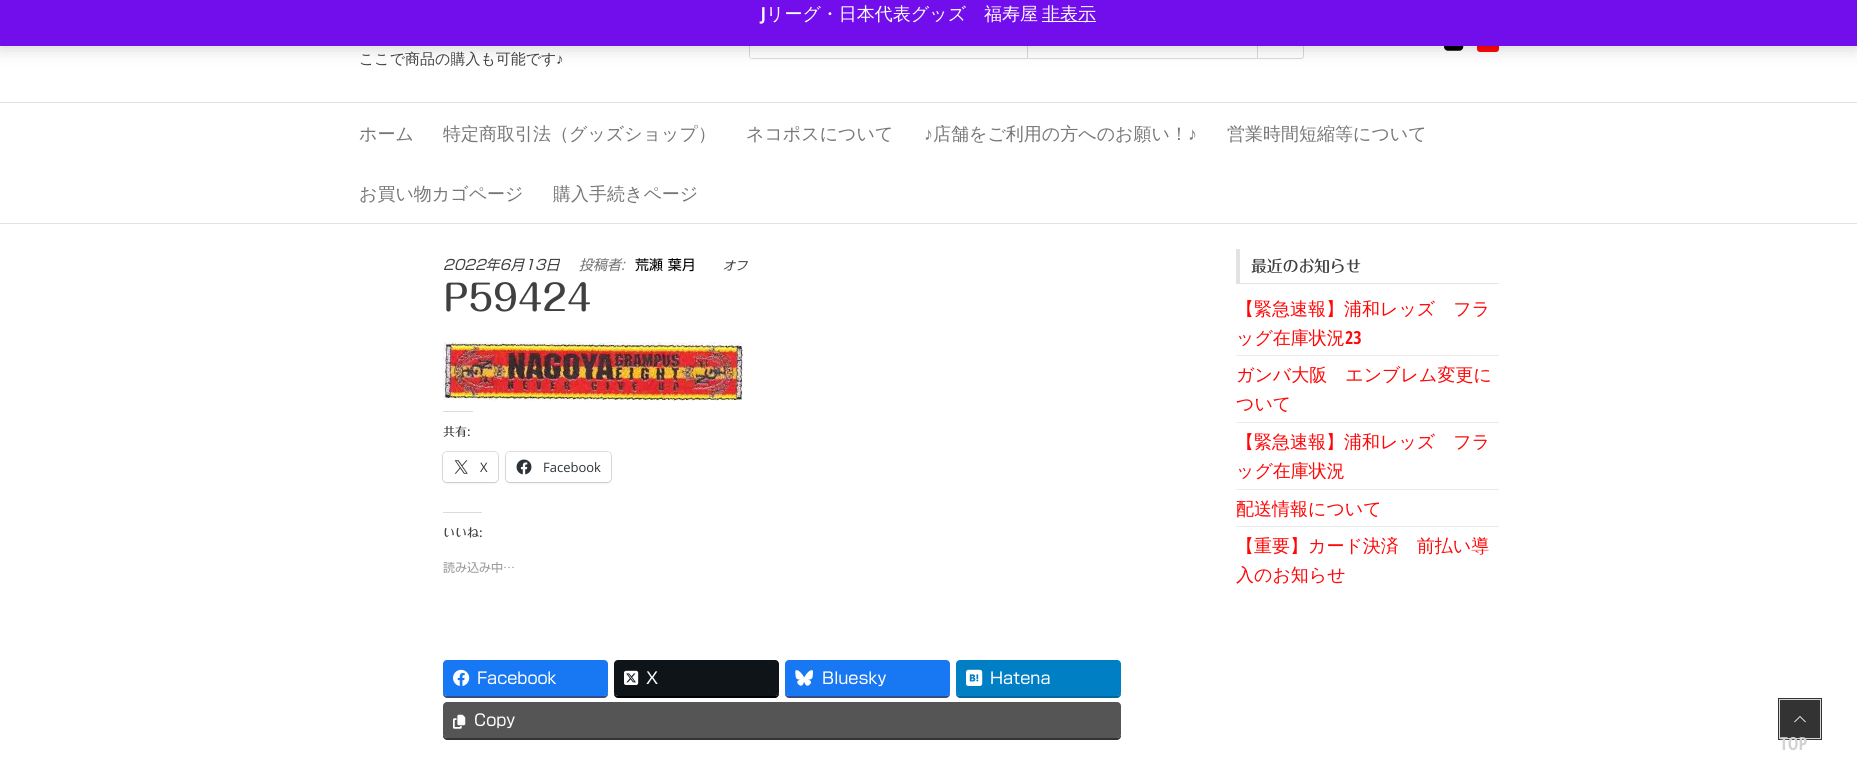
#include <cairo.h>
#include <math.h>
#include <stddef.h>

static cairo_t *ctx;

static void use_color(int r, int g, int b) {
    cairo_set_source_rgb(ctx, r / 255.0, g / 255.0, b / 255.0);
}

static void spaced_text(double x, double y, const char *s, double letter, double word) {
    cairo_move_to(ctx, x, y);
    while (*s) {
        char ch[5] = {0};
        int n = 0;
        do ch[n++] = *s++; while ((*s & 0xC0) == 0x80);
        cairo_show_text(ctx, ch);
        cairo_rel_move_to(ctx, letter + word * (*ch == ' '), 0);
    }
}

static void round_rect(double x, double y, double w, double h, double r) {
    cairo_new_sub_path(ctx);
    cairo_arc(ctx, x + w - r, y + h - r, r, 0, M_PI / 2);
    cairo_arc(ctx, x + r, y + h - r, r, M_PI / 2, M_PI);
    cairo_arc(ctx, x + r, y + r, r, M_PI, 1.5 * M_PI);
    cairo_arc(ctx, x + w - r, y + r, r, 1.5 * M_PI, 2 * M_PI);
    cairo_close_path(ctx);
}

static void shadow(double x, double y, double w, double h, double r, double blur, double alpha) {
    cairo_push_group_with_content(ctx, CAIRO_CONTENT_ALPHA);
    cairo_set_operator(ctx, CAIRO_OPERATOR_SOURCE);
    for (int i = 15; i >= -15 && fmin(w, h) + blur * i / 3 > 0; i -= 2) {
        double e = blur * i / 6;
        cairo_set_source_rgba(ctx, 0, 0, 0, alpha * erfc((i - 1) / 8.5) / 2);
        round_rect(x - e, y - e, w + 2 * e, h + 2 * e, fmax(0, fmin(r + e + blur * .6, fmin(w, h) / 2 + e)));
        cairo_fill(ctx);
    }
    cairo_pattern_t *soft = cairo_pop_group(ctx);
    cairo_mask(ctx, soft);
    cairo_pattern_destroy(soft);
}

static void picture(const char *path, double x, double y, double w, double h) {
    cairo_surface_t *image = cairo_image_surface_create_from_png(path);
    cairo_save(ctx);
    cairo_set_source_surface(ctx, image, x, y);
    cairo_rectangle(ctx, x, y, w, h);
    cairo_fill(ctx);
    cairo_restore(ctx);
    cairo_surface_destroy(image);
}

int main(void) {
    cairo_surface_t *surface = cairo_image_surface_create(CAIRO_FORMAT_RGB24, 1857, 761);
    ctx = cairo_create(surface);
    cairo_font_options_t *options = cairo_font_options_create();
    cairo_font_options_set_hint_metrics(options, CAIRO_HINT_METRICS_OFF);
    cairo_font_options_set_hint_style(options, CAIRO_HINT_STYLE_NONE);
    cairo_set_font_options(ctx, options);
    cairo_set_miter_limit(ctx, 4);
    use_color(255, 255, 255);
    cairo_paint(ctx);
    round_rect(749.5, 17.5, 554, 41, 2.5);
    use_color(217, 217, 217);
    cairo_set_line_width(ctx, 1);
    cairo_stroke(ctx);
    use_color(255, 255, 255);
    cairo_rectangle(ctx, 750, 56, 2, 2);
    cairo_fill(ctx);
    use_color(217, 217, 217);
    cairo_rectangle(ctx, 1027, 46, 1, 12);
    cairo_fill(ctx);
    cairo_rectangle(ctx, 1257, 46, 1, 12);
    cairo_fill(ctx);
    picture("img1.png", 1444, 46, 20, 5);
    use_color(255, 7, 7);
    round_rect(1477, 30, 22, 22, 3);
    cairo_fill(ctx);
    use_color(0, 0, 0);
    shadow(0, -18, 1857, 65, 0, 9, 0.2);
    use_color(114, 14, 236);
    cairo_rectangle(ctx, 0, 0, 1857, 46);
    cairo_fill(ctx);
    cairo_select_font_face(ctx, "Open Sans Condensed", CAIRO_FONT_SLANT_NORMAL, CAIRO_FONT_WEIGHT_BOLD);
    cairo_set_font_size(ctx, 18);
    use_color(255, 255, 255);
    cairo_move_to(ctx, 761, 20);
    cairo_show_text(ctx, "J");
    cairo_select_font_face(ctx, "WenQuanYi Zen Hei Medium", CAIRO_FONT_SLANT_NORMAL, CAIRO_FONT_WEIGHT_NORMAL);
    cairo_move_to(ctx, 766, 20);
    cairo_show_text(ctx, "リーグ・日本代表グッズ　福寿屋");
    use_color(252, 251, 254);
    cairo_rectangle(ctx, 1042, 21, 54, 1);
    cairo_fill(ctx);
    use_color(255, 255, 255);
    cairo_move_to(ctx, 1042, 20);
    cairo_show_text(ctx, "非表示");
    cairo_set_font_size(ctx, 15);
    use_color(64, 64, 64);
    cairo_move_to(ctx, 359, 64);
    cairo_show_text(ctx, "ここで商品の購入も可能です");
    cairo_select_font_face(ctx, "Liberation Sans", CAIRO_FONT_SLANT_NORMAL, CAIRO_FONT_WEIGHT_NORMAL);
    cairo_move_to(ctx, 556, 64);
    cairo_show_text(ctx, "♪");
    use_color(226, 226, 226);
    cairo_rectangle(ctx, 0, 102, 1857, 1);
    cairo_fill(ctx);
    cairo_rectangle(ctx, 0, 223, 1857, 1);
    cairo_fill(ctx);
    cairo_select_font_face(ctx, "WenQuanYi Zen Hei Medium", CAIRO_FONT_SLANT_NORMAL, CAIRO_FONT_WEIGHT_NORMAL);
    cairo_set_font_size(ctx, 18);
    use_color(119, 119, 119);
    cairo_move_to(ctx, 359, 140);
    cairo_show_text(ctx, "ホーム");
    cairo_move_to(ctx, 443, 140);
    cairo_show_text(ctx, "特定商取引法（グッズショップ）");
    cairo_move_to(ctx, 746, 140);
    cairo_show_text(ctx, "ネコポスについて");
    cairo_select_font_face(ctx, "Liberation Sans", CAIRO_FONT_SLANT_NORMAL, CAIRO_FONT_WEIGHT_NORMAL);
    cairo_move_to(ctx, 924, 140);
    cairo_show_text(ctx, "♪");
    cairo_select_font_face(ctx, "WenQuanYi Zen Hei Medium", CAIRO_FONT_SLANT_NORMAL, CAIRO_FONT_WEIGHT_NORMAL);
    cairo_move_to(ctx, 933, 140);
    cairo_show_text(ctx, "店舗をご利用の方へのお願い！");
    cairo_select_font_face(ctx, "Liberation Sans", CAIRO_FONT_SLANT_NORMAL, CAIRO_FONT_WEIGHT_NORMAL);
    cairo_move_to(ctx, 1188, 140);
    cairo_show_text(ctx, "♪");
    cairo_select_font_face(ctx, "WenQuanYi Zen Hei Medium", CAIRO_FONT_SLANT_NORMAL, CAIRO_FONT_WEIGHT_NORMAL);
    cairo_move_to(ctx, 1227, 140);
    cairo_show_text(ctx, "営業時間短縮等について");
    cairo_move_to(ctx, 359, 200);
    cairo_show_text(ctx, "お買い物カゴページ");
    cairo_move_to(ctx, 553, 200);
    cairo_show_text(ctx, "購入手続きページ");
    cairo_select_font_face(ctx, "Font", CAIRO_FONT_SLANT_ITALIC, CAIRO_FONT_WEIGHT_NORMAL);
    cairo_set_font_size(ctx, 14);
    use_color(64, 64, 64);
    cairo_move_to(ctx, 443, 270);
    cairo_show_text(ctx, "2022年6月13日");
    use_color(119, 119, 119);
    cairo_move_to(ctx, 579, 270);
    cairo_show_text(ctx, "投稿者:");
    cairo_select_font_face(ctx, "Font", CAIRO_FONT_SLANT_NORMAL, CAIRO_FONT_WEIGHT_NORMAL);
    use_color(0, 0, 0);
    cairo_move_to(ctx, 635, 270);
    cairo_show_text(ctx, "荒瀬 葉月");
    cairo_select_font_face(ctx, "Font", CAIRO_FONT_SLANT_ITALIC, CAIRO_FONT_WEIGHT_NORMAL);
    cairo_set_font_size(ctx, 12);
    use_color(64, 64, 64);
    cairo_move_to(ctx, 723, 270);
    cairo_show_text(ctx, "オフ");
    cairo_select_font_face(ctx, "Font Medium", CAIRO_FONT_SLANT_NORMAL, CAIRO_FONT_WEIGHT_NORMAL);
    cairo_set_font_size(ctx, 36);
    spaced_text(443, 311, "P59424", -0.75, 0);
    picture("img2.png", 443, 342, 300, 59);
    use_color(220, 220, 222);
    cairo_rectangle(ctx, 443, 411, 30, 1);
    cairo_fill(ctx);
    cairo_set_font_size(ctx, 12);
    use_color(64, 64, 64);
    cairo_move_to(ctx, 443, 436);
    cairo_show_text(ctx, "共有:");
    round_rect(442.5, 451.5, 56, 31, 4.5);
    use_color(224, 224, 224);
    cairo_stroke(ctx);
    use_color(0, 0, 0);
    shadow(443, 453, 55, 30, 4, 1, 0.12);
    use_color(255, 255, 255);
    round_rect(443, 452, 55, 30, 4);
    cairo_fill(ctx);
    picture("img3.png", 454, 460, 14, 14);
    cairo_select_font_face(ctx, "Open Sans", CAIRO_FONT_SLANT_NORMAL, CAIRO_FONT_WEIGHT_NORMAL);
    cairo_set_font_size(ctx, 13);
    use_color(44, 51, 56);
    cairo_move_to(ctx, 480, 472);
    cairo_show_text(ctx, "X");
    round_rect(505.5, 451.5, 106, 31, 4.5);
    use_color(224, 224, 224);
    cairo_stroke(ctx);
    use_color(0, 0, 0);
    shadow(506, 453, 105, 30, 4, 1, 0.12);
    use_color(255, 255, 255);
    round_rect(506, 452, 105, 30, 4);
    cairo_fill(ctx);
    picture("img4.png", 516, 459, 16, 16);
    use_color(44, 51, 56);
    cairo_move_to(ctx, 543, 472);
    cairo_show_text(ctx, "Facebook");
    use_color(220, 220, 222);
    cairo_rectangle(ctx, 443, 512, 39, 1);
    cairo_fill(ctx);
    cairo_select_font_face(ctx, "Font Medium", CAIRO_FONT_SLANT_NORMAL, CAIRO_FONT_WEIGHT_NORMAL);
    cairo_set_font_size(ctx, 12);
    use_color(64, 64, 64);
    cairo_move_to(ctx, 443, 537);
    cairo_show_text(ctx, "いいね:");
    cairo_select_font_face(ctx, "Font", CAIRO_FONT_SLANT_NORMAL, CAIRO_FONT_WEIGHT_NORMAL);
    use_color(153, 153, 153);
    cairo_move_to(ctx, 443, 572);
    cairo_show_text(ctx, "読み込み中…");
    use_color(52, 78, 132);
    cairo_new_path(ctx);
    cairo_move_to(ctx, 443, 692);
    cairo_line_to(ctx, 443, 694);
    cairo_curve_to(ctx, 443, 696, 445, 698, 447, 698);
    cairo_line_to(ctx, 604, 698);
    cairo_curve_to(ctx, 606, 698, 608, 696, 608, 694);
    cairo_line_to(ctx, 608, 692);
    cairo_curve_to(ctx, 608, 694, 606, 696, 604, 696);
    cairo_line_to(ctx, 447, 696);
    cairo_curve_to(ctx, 445, 696, 443, 694, 443, 692);
    cairo_close_path(ctx);
    cairo_fill(ctx);
    use_color(24, 119, 242);
    round_rect(443, 660, 165, 36, 4);
    cairo_fill(ctx);
    picture("img5.png", 453, 669, 17, 17);
    cairo_set_font_size(ctx, 16);
    use_color(255, 255, 255);
    cairo_move_to(ctx, 477, 684);
    cairo_show_text(ctx, "Facebook");
    use_color(0, 0, 0);
    cairo_new_path(ctx);
    cairo_move_to(ctx, 614, 692);
    cairo_line_to(ctx, 614, 694);
    cairo_curve_to(ctx, 614, 696, 616, 698, 618, 698);
    cairo_line_to(ctx, 775, 698);
    cairo_curve_to(ctx, 777, 698, 779, 696, 779, 694);
    cairo_line_to(ctx, 779, 692);
    cairo_curve_to(ctx, 779, 694, 777, 696, 775, 696);
    cairo_line_to(ctx, 618, 696);
    cairo_curve_to(ctx, 616, 696, 614, 694, 614, 692);
    cairo_close_path(ctx);
    cairo_fill(ctx);
    use_color(15, 20, 25);
    round_rect(614, 660, 165, 36, 4);
    cairo_fill(ctx);
    picture("img6.png", 624, 670, 15, 15);
    use_color(255, 255, 255);
    cairo_move_to(ctx, 646, 684);
    cairo_show_text(ctx, "X");
    use_color(52, 78, 132);
    cairo_new_path(ctx);
    cairo_move_to(ctx, 785, 692);
    cairo_line_to(ctx, 785, 694);
    cairo_curve_to(ctx, 785, 696, 787, 698, 789, 698);
    cairo_line_to(ctx, 946, 698);
    cairo_curve_to(ctx, 948, 698, 950, 696, 950, 694);
    cairo_line_to(ctx, 950, 692);
    cairo_curve_to(ctx, 950, 694, 948, 696, 946, 696);
    cairo_line_to(ctx, 789, 696);
    cairo_curve_to(ctx, 787, 696, 785, 694, 785, 692);
    cairo_close_path(ctx);
    cairo_fill(ctx);
    use_color(24, 119, 242);
    round_rect(785, 660, 165, 36, 4);
    cairo_fill(ctx);
    picture("img7.png", 795, 670, 18, 16);
    use_color(255, 255, 255);
    cairo_move_to(ctx, 822, 684);
    cairo_show_text(ctx, "Bluesky");
    use_color(0, 103, 159);
    cairo_new_path(ctx);
    cairo_move_to(ctx, 956, 692);
    cairo_line_to(ctx, 956, 694);
    cairo_curve_to(ctx, 956, 696, 958, 698, 960, 698);
    cairo_line_to(ctx, 1117, 698);
    cairo_curve_to(ctx, 1119, 698, 1121, 696, 1121, 694);
    cairo_line_to(ctx, 1121, 692);
    cairo_curve_to(ctx, 1121, 694, 1119, 696, 1117, 696);
    cairo_line_to(ctx, 960, 696);
    cairo_curve_to(ctx, 958, 696, 956, 694, 956, 692);
    cairo_close_path(ctx);
    cairo_fill(ctx);
    use_color(0, 127, 197);
    round_rect(956, 660, 165, 36, 4);
    cairo_fill(ctx);
    picture("img8.png", 966, 669, 17, 17);
    use_color(255, 255, 255);
    cairo_move_to(ctx, 990, 684);
    cairo_show_text(ctx, "Hatena");
    use_color(51, 51, 51);
    cairo_new_path(ctx);
    cairo_move_to(ctx, 443, 734);
    cairo_line_to(ctx, 443, 736);
    cairo_curve_to(ctx, 443, 738, 445, 740, 447, 740);
    cairo_line_to(ctx, 1117, 740);
    cairo_curve_to(ctx, 1119, 740, 1121, 738, 1121, 736);
    cairo_line_to(ctx, 1121, 734);
    cairo_curve_to(ctx, 1121, 736, 1119, 738, 1117, 738);
    cairo_line_to(ctx, 447, 738);
    cairo_curve_to(ctx, 445, 738, 443, 736, 443, 734);
    cairo_close_path(ctx);
    cairo_fill(ctx);
    use_color(85, 85, 85);
    round_rect(443, 702, 678, 36, 4);
    cairo_fill(ctx);
    picture("img9.png", 453, 714, 13, 15);
    use_color(255, 255, 255);
    cairo_move_to(ctx, 474, 726);
    cairo_show_text(ctx, "Copy");
    use_color(226, 226, 226);
    cairo_rectangle(ctx, 1236, 283, 263, 1);
    cairo_fill(ctx);
    cairo_rectangle(ctx, 1236, 249, 4, 34);
    cairo_fill(ctx);
    cairo_select_font_face(ctx, "Font Medium", CAIRO_FONT_SLANT_NORMAL, CAIRO_FONT_WEIGHT_NORMAL);
    use_color(64, 64, 64);
    spaced_text(1251, 272, "最近のお知らせ", -0.25, 0);
    use_color(235, 235, 235);
    cairo_rectangle(ctx, 1236, 355, 263, 1);
    cairo_fill(ctx);
    cairo_select_font_face(ctx, "WenQuanYi Zen Hei Medium", CAIRO_FONT_SLANT_NORMAL, CAIRO_FONT_WEIGHT_NORMAL);
    cairo_set_font_size(ctx, 18);
    use_color(255, 7, 7);
    cairo_move_to(ctx, 1236, 315);
    cairo_show_text(ctx, "【緊急速報】浦和レッズ　フラ");
    cairo_move_to(ctx, 1236, 344);
    cairo_show_text(ctx, "ッグ在庫状況");
    cairo_select_font_face(ctx, "Open Sans Condensed", CAIRO_FONT_SLANT_NORMAL, CAIRO_FONT_WEIGHT_BOLD);
    cairo_move_to(ctx, 1345, 344);
    cairo_show_text(ctx, "23");
    use_color(235, 235, 235);
    cairo_rectangle(ctx, 1236, 422, 263, 1);
    cairo_fill(ctx);
    cairo_select_font_face(ctx, "WenQuanYi Zen Hei Medium", CAIRO_FONT_SLANT_NORMAL, CAIRO_FONT_WEIGHT_NORMAL);
    use_color(255, 7, 7);
    cairo_move_to(ctx, 1236, 381);
    cairo_show_text(ctx, "ガンバ大阪　エンブレム変更に");
    cairo_move_to(ctx, 1236, 410);
    cairo_show_text(ctx, "ついて");
    use_color(235, 235, 235);
    cairo_rectangle(ctx, 1236, 489, 263, 1);
    cairo_fill(ctx);
    use_color(255, 7, 7);
    cairo_move_to(ctx, 1236, 448);
    cairo_show_text(ctx, "【緊急速報】浦和レッズ　フラ");
    cairo_move_to(ctx, 1236, 477);
    cairo_show_text(ctx, "ッグ在庫状況");
    use_color(235, 235, 235);
    cairo_rectangle(ctx, 1236, 526, 263, 1);
    cairo_fill(ctx);
    use_color(255, 7, 7);
    cairo_move_to(ctx, 1236, 515);
    cairo_show_text(ctx, "配送情報について");
    cairo_move_to(ctx, 1236, 552);
    cairo_show_text(ctx, "【重要】カード決済　前払い導");
    cairo_move_to(ctx, 1236, 581);
    cairo_show_text(ctx, "入のお知らせ");
    cairo_rectangle(ctx, 1779, 699, 42, 40);
    use_color(51, 51, 51);
    cairo_set_line_width(ctx, 2);
    cairo_stroke(ctx);
    cairo_rectangle(ctx, 1779.5, 699.5, 41, 39);
    use_color(214, 214, 214);
    cairo_set_line_width(ctx, 1);
    cairo_stroke(ctx);
    use_color(51, 51, 51);
    cairo_rectangle(ctx, 1780, 700, 40, 38);
    cairo_fill(ctx);
    picture("img10.png", 1794, 716, 12, 7);
    cairo_select_font_face(ctx, "Open Sans Condensed", CAIRO_FONT_SLANT_NORMAL, CAIRO_FONT_WEIGHT_BOLD);
    use_color(210, 210, 210);
    cairo_move_to(ctx, 1780, 750);
    cairo_show_text(ctx, "TOP");
    cairo_surface_write_to_png(surface, "result.png");
    cairo_font_options_destroy(options);
    cairo_destroy(ctx);
    cairo_surface_destroy(surface);
    return 0;
}
